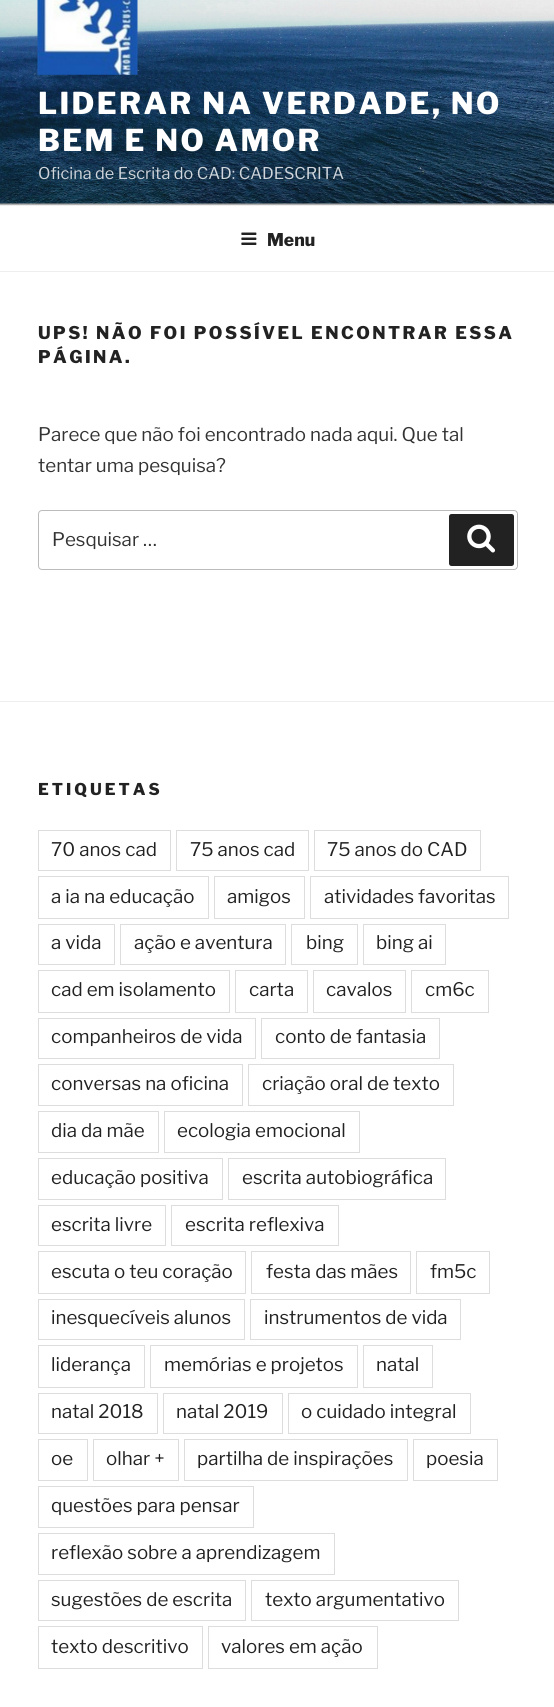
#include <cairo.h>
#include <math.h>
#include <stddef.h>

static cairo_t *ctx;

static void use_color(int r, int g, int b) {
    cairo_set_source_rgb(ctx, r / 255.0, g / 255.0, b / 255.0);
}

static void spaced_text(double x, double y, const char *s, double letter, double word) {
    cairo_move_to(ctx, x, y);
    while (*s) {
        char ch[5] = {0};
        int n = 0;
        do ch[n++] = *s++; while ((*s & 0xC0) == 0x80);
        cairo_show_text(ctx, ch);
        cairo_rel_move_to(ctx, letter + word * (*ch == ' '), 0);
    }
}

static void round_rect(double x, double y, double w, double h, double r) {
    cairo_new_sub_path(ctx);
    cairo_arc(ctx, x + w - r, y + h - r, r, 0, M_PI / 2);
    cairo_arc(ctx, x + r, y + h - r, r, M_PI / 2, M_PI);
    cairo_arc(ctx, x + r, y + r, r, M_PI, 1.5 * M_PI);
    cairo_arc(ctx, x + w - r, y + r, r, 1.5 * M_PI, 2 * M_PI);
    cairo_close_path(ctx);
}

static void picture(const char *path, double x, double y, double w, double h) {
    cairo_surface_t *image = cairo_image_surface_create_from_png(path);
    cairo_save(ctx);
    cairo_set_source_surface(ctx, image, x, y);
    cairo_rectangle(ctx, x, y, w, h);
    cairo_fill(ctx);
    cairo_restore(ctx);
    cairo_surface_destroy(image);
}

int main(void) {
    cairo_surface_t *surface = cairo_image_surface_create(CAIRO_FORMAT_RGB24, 554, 1707);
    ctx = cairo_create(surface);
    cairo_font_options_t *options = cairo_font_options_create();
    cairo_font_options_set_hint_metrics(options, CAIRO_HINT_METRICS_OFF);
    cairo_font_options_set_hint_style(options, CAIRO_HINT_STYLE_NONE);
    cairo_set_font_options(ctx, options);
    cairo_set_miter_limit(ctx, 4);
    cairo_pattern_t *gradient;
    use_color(255, 255, 255);
    cairo_paint(ctx);
    use_color(250, 250, 250);
    cairo_rectangle(ctx, 0, 203, 554, 2);
    cairo_fill(ctx);
    picture("img1.png", 0, 0, 554, 204);
    gradient = cairo_pattern_create_linear(278, -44, 278, 205);
    cairo_pattern_add_color_stop_rgba(gradient, 0, 0, 0, 0, 0);
    cairo_pattern_add_color_stop_rgba(gradient, 0.75, 0, 0, 0, 0.3);
    cairo_pattern_add_color_stop_rgba(gradient, 1, 0, 0, 0, 0.3);
    cairo_set_source(ctx, gradient);
    cairo_pattern_destroy(gradient);
    cairo_rectangle(ctx, 0, 0, 554, 205);
    cairo_fill(ctx);
    picture("img2.png", 37, 0, 101, 75);
    cairo_select_font_face(ctx, "Libre Franklin Thin", CAIRO_FONT_SLANT_NORMAL, CAIRO_FONT_WEIGHT_NORMAL);
    cairo_set_font_size(ctx, 30);
    use_color(255, 255, 255);
    spaced_text(38, 114, "LIDERAR NA VERDADE, NO", 2.4, 0);
    spaced_text(38, 151, "BEM E NO AMOR", 2.4, 0);
    cairo_select_font_face(ctx, "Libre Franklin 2 Thin", CAIRO_FONT_SLANT_NORMAL, CAIRO_FONT_WEIGHT_NORMAL);
    cairo_set_font_size(ctx, 16.25);
    use_color(208, 214, 219);
    cairo_move_to(ctx, 38, 179);
    cairo_show_text(ctx, "Oficina de Escrita do CAD: CADESCRITA");
    use_color(238, 238, 238);
    cairo_rectangle(ctx, 0, 205, 554, 1);
    cairo_fill(ctx);
    cairo_rectangle(ctx, 0, 271, 554, 1);
    cairo_fill(ctx);
    picture("img3.png", 241, 232, 16, 13);
    cairo_select_font_face(ctx, "Libre Franklin Thin", CAIRO_FONT_SLANT_NORMAL, CAIRO_FONT_WEIGHT_NORMAL);
    cairo_set_font_size(ctx, 17.5);
    use_color(34, 34, 34);
    cairo_move_to(ctx, 267, 246);
    cairo_show_text(ctx, "Menu");
    spaced_text(38, 339, "UPS! NÃO FOI POSSÍVEL ENCONTRAR ESSA", 2.45, 0);
    spaced_text(38, 363, "PÁGINA.", 2.45, 0);
    cairo_select_font_face(ctx, "Libre Franklin 2 Thin", CAIRO_FONT_SLANT_NORMAL, CAIRO_FONT_WEIGHT_NORMAL);
    cairo_set_font_size(ctx, 18.75);
    use_color(51, 51, 51);
    cairo_move_to(ctx, 38, 441);
    cairo_show_text(ctx, "Parece que não foi encontrado nada aqui. Que tal");
    cairo_move_to(ctx, 38, 472);
    cairo_show_text(ctx, "tentar uma pesquisa?");
    round_rect(38.5, 510.5, 479, 59, 3.5);
    use_color(187, 187, 187);
    cairo_set_line_width(ctx, 1);
    cairo_stroke(ctx);
    use_color(51, 51, 51);
    cairo_move_to(ctx, 52, 546);
    cairo_show_text(ctx, "Pesquisar …");
    use_color(34, 34, 34);
    round_rect(449, 514, 65, 52, 2.5);
    cairo_fill(ctx);
    picture("img4.png", 467, 524, 28, 29);
    use_color(238, 238, 238);
    cairo_rectangle(ctx, 0, 701, 554, 1);
    cairo_fill(ctx);
    cairo_select_font_face(ctx, "Libre Franklin Thin", CAIRO_FONT_SLANT_NORMAL, CAIRO_FONT_WEIGHT_NORMAL);
    cairo_set_font_size(ctx, 16.25);
    use_color(34, 34, 34);
    spaced_text(38, 795, "ETIQUETAS", 3, 0);
    cairo_rectangle(ctx, 38.5, 830.5, 132, 40);
    use_color(221, 221, 221);
    cairo_stroke(ctx);
    cairo_select_font_face(ctx, "Libre Franklin 2 Thin", CAIRO_FONT_SLANT_NORMAL, CAIRO_FONT_WEIGHT_NORMAL);
    cairo_set_font_size(ctx, 18.75);
    use_color(34, 34, 34);
    cairo_move_to(ctx, 51, 856);
    cairo_show_text(ctx, "70 anos cad");
    cairo_rectangle(ctx, 176.5, 830.5, 132, 40);
    use_color(221, 221, 221);
    cairo_stroke(ctx);
    use_color(34, 34, 34);
    cairo_move_to(ctx, 190, 856);
    cairo_show_text(ctx, "75 anos cad");
    cairo_rectangle(ctx, 314.5, 830.5, 166, 40);
    use_color(221, 221, 221);
    cairo_stroke(ctx);
    use_color(34, 34, 34);
    cairo_move_to(ctx, 327, 856);
    cairo_show_text(ctx, "75 anos do CAD");
    cairo_rectangle(ctx, 38.5, 876.5, 170, 42);
    use_color(221, 221, 221);
    cairo_stroke(ctx);
    use_color(34, 34, 34);
    cairo_move_to(ctx, 51, 903);
    cairo_show_text(ctx, "a ia na educação");
    cairo_rectangle(ctx, 214.5, 876.5, 90, 42);
    use_color(221, 221, 221);
    cairo_stroke(ctx);
    use_color(34, 34, 34);
    cairo_move_to(ctx, 227, 903);
    cairo_show_text(ctx, "amigos");
    cairo_rectangle(ctx, 310.5, 876.5, 198, 42);
    use_color(221, 221, 221);
    cairo_stroke(ctx);
    use_color(34, 34, 34);
    cairo_move_to(ctx, 324, 903);
    cairo_show_text(ctx, "atividades favoritas");
    cairo_rectangle(ctx, 38.5, 924.5, 76, 40);
    use_color(221, 221, 221);
    cairo_stroke(ctx);
    use_color(34, 34, 34);
    cairo_move_to(ctx, 51, 949);
    cairo_show_text(ctx, "a vida");
    cairo_rectangle(ctx, 120.5, 924.5, 165, 40);
    use_color(221, 221, 221);
    cairo_stroke(ctx);
    use_color(34, 34, 34);
    cairo_move_to(ctx, 134, 949);
    cairo_show_text(ctx, "ação e aventura");
    cairo_rectangle(ctx, 291.5, 924.5, 66, 40);
    use_color(221, 221, 221);
    cairo_stroke(ctx);
    use_color(34, 34, 34);
    cairo_move_to(ctx, 306, 949);
    cairo_show_text(ctx, "bing");
    cairo_rectangle(ctx, 363.5, 924.5, 82, 40);
    use_color(221, 221, 221);
    cairo_stroke(ctx);
    use_color(34, 34, 34);
    cairo_move_to(ctx, 376, 949);
    cairo_show_text(ctx, "bing ai");
    cairo_rectangle(ctx, 38.5, 970.5, 191, 42);
    use_color(221, 221, 221);
    cairo_stroke(ctx);
    use_color(34, 34, 34);
    cairo_move_to(ctx, 51, 996);
    cairo_show_text(ctx, "cad em isolamento");
    cairo_rectangle(ctx, 235.5, 970.5, 72, 42);
    use_color(221, 221, 221);
    cairo_stroke(ctx);
    use_color(34, 34, 34);
    cairo_move_to(ctx, 249, 996);
    cairo_show_text(ctx, "carta");
    cairo_rectangle(ctx, 313.5, 970.5, 92, 42);
    use_color(221, 221, 221);
    cairo_stroke(ctx);
    use_color(34, 34, 34);
    cairo_move_to(ctx, 326, 996);
    cairo_show_text(ctx, "cavalos");
    cairo_rectangle(ctx, 411.5, 970.5, 77, 42);
    use_color(221, 221, 221);
    cairo_stroke(ctx);
    use_color(34, 34, 34);
    cairo_move_to(ctx, 425, 996);
    cairo_show_text(ctx, "cm6c");
    cairo_rectangle(ctx, 38.5, 1018.5, 217, 40);
    use_color(221, 221, 221);
    cairo_stroke(ctx);
    use_color(34, 34, 34);
    cairo_move_to(ctx, 51, 1043);
    cairo_show_text(ctx, "companheiros de vida");
    cairo_rectangle(ctx, 261.5, 1018.5, 178, 40);
    use_color(221, 221, 221);
    cairo_stroke(ctx);
    use_color(34, 34, 34);
    cairo_move_to(ctx, 275, 1043);
    cairo_show_text(ctx, "conto de fantasia");
    cairo_rectangle(ctx, 38.5, 1064.5, 204, 41);
    use_color(221, 221, 221);
    cairo_stroke(ctx);
    use_color(34, 34, 34);
    cairo_move_to(ctx, 51, 1090);
    cairo_show_text(ctx, "conversas na oficina");
    cairo_rectangle(ctx, 248.5, 1064.5, 205, 41);
    use_color(221, 221, 221);
    cairo_stroke(ctx);
    use_color(34, 34, 34);
    cairo_move_to(ctx, 262, 1090);
    cairo_show_text(ctx, "criação oral de texto");
    cairo_rectangle(ctx, 38.5, 1111.5, 120, 41);
    use_color(221, 221, 221);
    cairo_stroke(ctx);
    use_color(34, 34, 34);
    cairo_move_to(ctx, 51, 1137);
    cairo_show_text(ctx, "dia da mãe");
    cairo_rectangle(ctx, 164.5, 1111.5, 195, 41);
    use_color(221, 221, 221);
    cairo_stroke(ctx);
    use_color(34, 34, 34);
    cairo_move_to(ctx, 177, 1137);
    cairo_show_text(ctx, "ecologia emocional");
    cairo_rectangle(ctx, 38.5, 1158.5, 184, 41);
    use_color(221, 221, 221);
    cairo_stroke(ctx);
    use_color(34, 34, 34);
    cairo_move_to(ctx, 51, 1184);
    cairo_show_text(ctx, "educação positiva");
    cairo_rectangle(ctx, 228.5, 1158.5, 217, 41);
    use_color(221, 221, 221);
    cairo_stroke(ctx);
    use_color(34, 34, 34);
    cairo_move_to(ctx, 242, 1184);
    cairo_show_text(ctx, "escrita autobiográfica");
    cairo_rectangle(ctx, 38.5, 1205.5, 127, 40);
    use_color(221, 221, 221);
    cairo_stroke(ctx);
    use_color(34, 34, 34);
    cairo_move_to(ctx, 51, 1231);
    cairo_show_text(ctx, "escrita livre");
    cairo_rectangle(ctx, 171.5, 1205.5, 167, 40);
    use_color(221, 221, 221);
    cairo_stroke(ctx);
    use_color(34, 34, 34);
    cairo_move_to(ctx, 185, 1231);
    cairo_show_text(ctx, "escrita reflexiva");
    cairo_rectangle(ctx, 38.5, 1251.5, 207, 42);
    use_color(221, 221, 221);
    cairo_stroke(ctx);
    use_color(34, 34, 34);
    cairo_move_to(ctx, 51, 1278);
    cairo_show_text(ctx, "escuta o teu coração");
    cairo_rectangle(ctx, 251.5, 1251.5, 159, 42);
    use_color(221, 221, 221);
    cairo_stroke(ctx);
    use_color(34, 34, 34);
    cairo_move_to(ctx, 266, 1278);
    cairo_show_text(ctx, "festa das mães");
    cairo_rectangle(ctx, 416.5, 1251.5, 73, 42);
    use_color(221, 221, 221);
    cairo_stroke(ctx);
    use_color(34, 34, 34);
    cairo_move_to(ctx, 430, 1278);
    cairo_show_text(ctx, "fm5c");
    cairo_rectangle(ctx, 38.5, 1299.5, 206, 40);
    use_color(221, 221, 221);
    cairo_stroke(ctx);
    use_color(34, 34, 34);
    cairo_move_to(ctx, 51, 1324);
    cairo_show_text(ctx, "inesquecíveis alunos");
    cairo_rectangle(ctx, 250.5, 1299.5, 210, 40);
    use_color(221, 221, 221);
    cairo_stroke(ctx);
    use_color(34, 34, 34);
    cairo_move_to(ctx, 264, 1324);
    cairo_show_text(ctx, "instrumentos de vida");
    cairo_rectangle(ctx, 38.5, 1345.5, 106, 42);
    use_color(221, 221, 221);
    cairo_stroke(ctx);
    use_color(34, 34, 34);
    cairo_move_to(ctx, 51, 1371);
    cairo_show_text(ctx, "liderança");
    cairo_rectangle(ctx, 150.5, 1345.5, 207, 42);
    use_color(221, 221, 221);
    cairo_stroke(ctx);
    use_color(34, 34, 34);
    cairo_move_to(ctx, 164, 1371);
    cairo_show_text(ctx, "memórias e projetos");
    cairo_rectangle(ctx, 363.5, 1345.5, 69, 42);
    use_color(221, 221, 221);
    cairo_stroke(ctx);
    use_color(34, 34, 34);
    cairo_move_to(ctx, 376, 1371);
    cairo_show_text(ctx, "natal");
    cairo_rectangle(ctx, 38.5, 1393.5, 119, 40);
    use_color(221, 221, 221);
    cairo_stroke(ctx);
    use_color(34, 34, 34);
    cairo_move_to(ctx, 51, 1418);
    cairo_show_text(ctx, "natal 2018");
    cairo_rectangle(ctx, 163.5, 1393.5, 119, 40);
    use_color(221, 221, 221);
    cairo_stroke(ctx);
    use_color(34, 34, 34);
    cairo_move_to(ctx, 176, 1418);
    cairo_show_text(ctx, "natal 2019");
    cairo_rectangle(ctx, 288.5, 1393.5, 182, 40);
    use_color(221, 221, 221);
    cairo_stroke(ctx);
    use_color(34, 34, 34);
    cairo_move_to(ctx, 301, 1418);
    cairo_show_text(ctx, "o cuidado integral");
    cairo_rectangle(ctx, 38.5, 1439.5, 49, 41);
    use_color(221, 221, 221);
    cairo_stroke(ctx);
    use_color(34, 34, 34);
    cairo_move_to(ctx, 51, 1465);
    cairo_show_text(ctx, "oe");
    cairo_rectangle(ctx, 93.5, 1439.5, 85, 41);
    use_color(221, 221, 221);
    cairo_stroke(ctx);
    use_color(34, 34, 34);
    cairo_move_to(ctx, 106, 1465);
    cairo_show_text(ctx, "olhar +");
    cairo_rectangle(ctx, 184.5, 1439.5, 223, 41);
    use_color(221, 221, 221);
    cairo_stroke(ctx);
    use_color(34, 34, 34);
    cairo_move_to(ctx, 197, 1465);
    cairo_show_text(ctx, "partilha de inspirações");
    cairo_rectangle(ctx, 413.5, 1439.5, 84, 41);
    use_color(221, 221, 221);
    cairo_stroke(ctx);
    use_color(34, 34, 34);
    cairo_move_to(ctx, 426, 1465);
    cairo_show_text(ctx, "poesia");
    cairo_rectangle(ctx, 38.5, 1486.5, 215, 41);
    use_color(221, 221, 221);
    cairo_stroke(ctx);
    use_color(34, 34, 34);
    cairo_move_to(ctx, 51, 1512);
    cairo_show_text(ctx, "questões para pensar");
    cairo_rectangle(ctx, 38.5, 1533.5, 296, 41);
    use_color(221, 221, 221);
    cairo_stroke(ctx);
    use_color(34, 34, 34);
    cairo_move_to(ctx, 51, 1559);
    cairo_show_text(ctx, "reflexão sobre a aprendizagem");
    cairo_rectangle(ctx, 38.5, 1580.5, 207, 40);
    use_color(221, 221, 221);
    cairo_stroke(ctx);
    use_color(34, 34, 34);
    cairo_move_to(ctx, 51, 1606);
    cairo_show_text(ctx, "sugestões de escrita");
    cairo_rectangle(ctx, 251.5, 1580.5, 207, 40);
    use_color(221, 221, 221);
    cairo_stroke(ctx);
    use_color(34, 34, 34);
    cairo_move_to(ctx, 265, 1606);
    cairo_show_text(ctx, "texto argumentativo");
    cairo_rectangle(ctx, 38.5, 1626.5, 164, 42);
    use_color(221, 221, 221);
    cairo_stroke(ctx);
    use_color(34, 34, 34);
    cairo_move_to(ctx, 51, 1653);
    cairo_show_text(ctx, "texto descritivo");
    cairo_rectangle(ctx, 208.5, 1626.5, 169, 42);
    use_color(221, 221, 221);
    cairo_stroke(ctx);
    use_color(34, 34, 34);
    cairo_move_to(ctx, 221, 1653);
    cairo_show_text(ctx, "valores em ação");
    cairo_surface_write_to_png(surface, "result.png");
    cairo_font_options_destroy(options);
    cairo_destroy(ctx);
    cairo_surface_destroy(surface);
    return 0;
}
